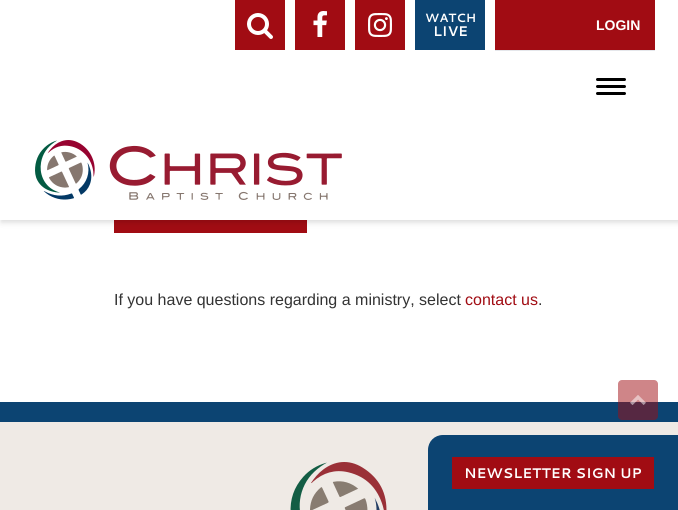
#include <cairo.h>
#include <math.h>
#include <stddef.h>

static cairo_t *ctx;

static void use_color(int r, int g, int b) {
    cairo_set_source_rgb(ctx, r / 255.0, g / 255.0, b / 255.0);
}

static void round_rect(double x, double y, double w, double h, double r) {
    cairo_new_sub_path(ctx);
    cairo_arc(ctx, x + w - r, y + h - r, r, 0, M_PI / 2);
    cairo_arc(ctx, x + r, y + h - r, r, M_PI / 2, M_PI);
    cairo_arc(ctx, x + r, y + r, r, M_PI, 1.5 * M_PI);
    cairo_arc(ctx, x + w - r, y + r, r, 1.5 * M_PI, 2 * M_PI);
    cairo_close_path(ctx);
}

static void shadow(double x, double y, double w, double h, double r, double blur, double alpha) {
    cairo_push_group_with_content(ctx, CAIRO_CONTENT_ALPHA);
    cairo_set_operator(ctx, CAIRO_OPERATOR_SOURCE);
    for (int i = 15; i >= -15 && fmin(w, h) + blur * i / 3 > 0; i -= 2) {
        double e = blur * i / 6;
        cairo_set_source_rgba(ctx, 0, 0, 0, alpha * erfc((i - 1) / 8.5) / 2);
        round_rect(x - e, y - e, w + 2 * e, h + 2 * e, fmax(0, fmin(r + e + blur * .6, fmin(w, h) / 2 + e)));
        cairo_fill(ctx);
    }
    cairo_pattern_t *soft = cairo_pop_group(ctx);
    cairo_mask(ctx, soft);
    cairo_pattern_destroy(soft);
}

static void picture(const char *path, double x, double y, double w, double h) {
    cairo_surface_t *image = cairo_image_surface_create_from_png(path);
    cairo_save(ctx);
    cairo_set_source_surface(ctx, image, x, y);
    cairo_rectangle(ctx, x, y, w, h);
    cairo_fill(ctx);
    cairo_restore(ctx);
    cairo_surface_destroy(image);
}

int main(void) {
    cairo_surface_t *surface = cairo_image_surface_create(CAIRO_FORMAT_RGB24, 678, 510);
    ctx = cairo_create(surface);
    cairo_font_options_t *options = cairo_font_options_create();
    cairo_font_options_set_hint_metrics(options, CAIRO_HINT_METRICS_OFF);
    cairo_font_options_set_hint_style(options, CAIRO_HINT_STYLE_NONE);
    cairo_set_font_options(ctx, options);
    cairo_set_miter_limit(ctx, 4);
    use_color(255, 255, 255);
    cairo_paint(ctx);
    use_color(161, 12, 19);
    cairo_rectangle(ctx, 114, 220, 193, 13);
    cairo_fill(ctx);
    use_color(0, 0, 0);
    shadow(1, 3, 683, 218, 0, 2, 0.06);
    shadow(1, 5, 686, 218, 0, 3, 0.1);
    use_color(255, 255, 255);
    cairo_rectangle(ctx, 0, 0, 678, 220);
    cairo_fill(ctx);
    use_color(161, 12, 19);
    cairo_rectangle(ctx, 235, 0, 50, 50);
    cairo_fill(ctx);
    picture("img1.png", 247, 13, 26, 26);
    cairo_rectangle(ctx, 295, 0, 50, 50);
    cairo_fill(ctx);
    picture("img2.png", 313, 11, 14, 26);
    cairo_rectangle(ctx, 355, 0, 50, 50);
    cairo_fill(ctx);
    picture("img3.png", 368, 13, 24, 24);
    use_color(12, 68, 114);
    cairo_rectangle(ctx, 415, 0, 70, 50);
    cairo_fill(ctx);
    cairo_select_font_face(ctx, "Cantarell", CAIRO_FONT_SLANT_NORMAL, CAIRO_FONT_WEIGHT_BOLD);
    cairo_set_font_size(ctx, 12);
    use_color(255, 255, 255);
    cairo_move_to(ctx, 425, 22);
    cairo_show_text(ctx, "WATCH");
    cairo_set_font_size(ctx, 14);
    cairo_move_to(ctx, 433, 36);
    cairo_show_text(ctx, "LIVE");
    use_color(161, 12, 19);
    cairo_rectangle(ctx, 495, 0, 160, 50);
    cairo_fill(ctx);
    use_color(229, 231, 235);
    cairo_rectangle(ctx, 495, 50, 160, 1);
    cairo_fill(ctx);
    cairo_select_font_face(ctx, "Liberation Sans", CAIRO_FONT_SLANT_NORMAL, CAIRO_FONT_WEIGHT_BOLD);
    use_color(255, 255, 255);
    cairo_move_to(ctx, 596, 30);
    cairo_show_text(ctx, "LOGIN");
    use_color(0, 0, 0);
    round_rect(596, 78, 30, 3, 1.5);
    cairo_fill(ctx);
    round_rect(596, 85, 30, 3, 1.5);
    cairo_fill(ctx);
    round_rect(596, 92, 30, 3, 1.5);
    cairo_fill(ctx);
    picture("img4.png", 35, 140, 307, 60);
    cairo_select_font_face(ctx, "Liberation Sans", CAIRO_FONT_SLANT_NORMAL, CAIRO_FONT_WEIGHT_NORMAL);
    cairo_set_font_size(ctx, 16);
    use_color(51, 51, 51);
    cairo_move_to(ctx, 114, 305);
    cairo_show_text(ctx, "If you have questions regarding a ministry, select");
    use_color(161, 12, 19);
    cairo_move_to(ctx, 465, 305);
    cairo_show_text(ctx, "contact us");
    use_color(51, 51, 51);
    cairo_move_to(ctx, 538, 305);
    cairo_show_text(ctx, ".");
    use_color(12, 68, 114);
    cairo_rectangle(ctx, 0, 402, 678, 20);
    cairo_fill(ctx);
    use_color(239, 234, 229);
    cairo_rectangle(ctx, 0, 422, 678, 88);
    cairo_fill(ctx);
    picture("img5.png", 290, 462, 97, 48);
    use_color(12, 68, 114);
    cairo_new_path(ctx);
    cairo_move_to(ctx, 443, 435);
    cairo_line_to(ctx, 678, 435);
    cairo_line_to(ctx, 678, 510);
    cairo_line_to(ctx, 428, 510);
    cairo_line_to(ctx, 428, 450);
    cairo_curve_to(ctx, 428, 441.5, 434.5, 435, 443, 435);
    cairo_close_path(ctx);
    cairo_fill(ctx);
    use_color(161, 12, 19);
    cairo_rectangle(ctx, 452, 457, 202, 32);
    cairo_fill(ctx);
    cairo_select_font_face(ctx, "Cantarell", CAIRO_FONT_SLANT_NORMAL, CAIRO_FONT_WEIGHT_BOLD);
    cairo_set_font_size(ctx, 14);
    use_color(255, 255, 255);
    cairo_move_to(ctx, 464, 478);
    cairo_show_text(ctx, "NEWSLETTER SIGN UP");
    cairo_set_source_rgba(ctx, 0.631, 0.047, 0.075, 0.5);
    round_rect(618, 380, 40, 40, 4);
    cairo_fill(ctx);
    picture("img6.png", 630, 395, 16, 10);
    cairo_surface_write_to_png(surface, "result.png");
    cairo_font_options_destroy(options);
    cairo_destroy(ctx);
    cairo_surface_destroy(surface);
    return 0;
}
